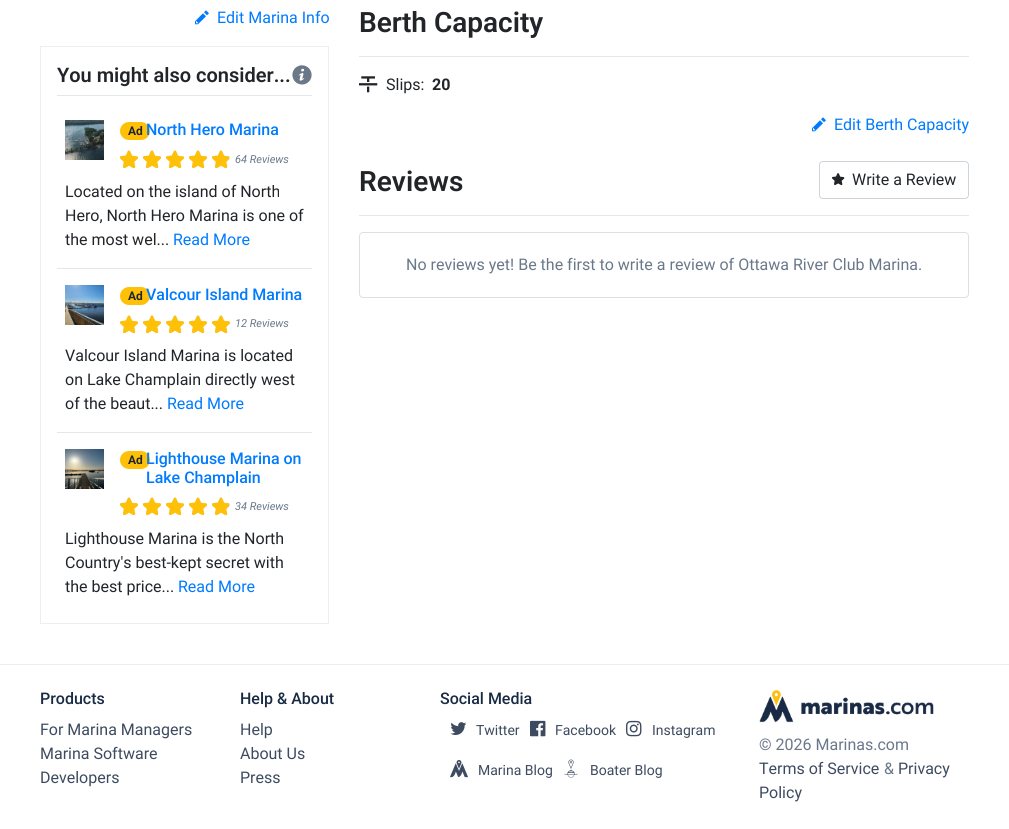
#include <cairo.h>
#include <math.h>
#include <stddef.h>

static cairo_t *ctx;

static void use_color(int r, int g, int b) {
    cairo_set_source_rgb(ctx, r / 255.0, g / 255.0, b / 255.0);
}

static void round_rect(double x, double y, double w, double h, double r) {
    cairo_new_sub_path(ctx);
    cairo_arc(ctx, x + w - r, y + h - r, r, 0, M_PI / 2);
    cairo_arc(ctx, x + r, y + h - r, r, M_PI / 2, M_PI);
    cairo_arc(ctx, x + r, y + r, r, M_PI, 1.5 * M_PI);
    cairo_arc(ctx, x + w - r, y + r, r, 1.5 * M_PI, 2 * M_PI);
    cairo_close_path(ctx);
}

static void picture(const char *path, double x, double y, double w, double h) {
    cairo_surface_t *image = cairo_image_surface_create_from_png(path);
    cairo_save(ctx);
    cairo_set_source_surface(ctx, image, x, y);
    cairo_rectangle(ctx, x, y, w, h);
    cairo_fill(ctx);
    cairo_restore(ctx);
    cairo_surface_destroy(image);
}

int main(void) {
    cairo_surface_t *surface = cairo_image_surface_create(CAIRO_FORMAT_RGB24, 1009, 829);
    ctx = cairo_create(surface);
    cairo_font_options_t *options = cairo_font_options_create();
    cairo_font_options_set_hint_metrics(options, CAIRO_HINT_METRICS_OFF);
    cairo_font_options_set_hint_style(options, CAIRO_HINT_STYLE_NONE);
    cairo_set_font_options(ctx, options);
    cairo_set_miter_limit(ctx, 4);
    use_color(255, 255, 255);
    cairo_paint(ctx);
    picture("img1.png", 195, 10, 14, 15);
    cairo_select_font_face(ctx, "Roboto", CAIRO_FONT_SLANT_NORMAL, CAIRO_FONT_WEIGHT_NORMAL);
    cairo_set_font_size(ctx, 16);
    use_color(0, 123, 255);
    cairo_move_to(ctx, 217, 23);
    cairo_show_text(ctx, "Edit Marina Info");
    cairo_rectangle(ctx, 40.5, 46.5, 288, 577);
    use_color(238, 238, 238);
    cairo_set_line_width(ctx, 1);
    cairo_stroke(ctx);
    cairo_select_font_face(ctx, "Roboto SemiBold", CAIRO_FONT_SLANT_NORMAL, CAIRO_FONT_WEIGHT_NORMAL);
    cairo_set_font_size(ctx, 20);
    use_color(33, 37, 41);
    cairo_move_to(ctx, 57, 82);
    cairo_show_text(ctx, "You might also consider...");
    picture("img2.png", 292, 65, 20, 20);
    use_color(230, 230, 230);
    cairo_rectangle(ctx, 57, 95, 255, 1);
    cairo_fill(ctx);
    picture("img3.png", 65, 120, 39, 40);
    use_color(255, 193, 7);
    round_rect(120, 122, 30, 18, 9);
    cairo_fill(ctx);
    cairo_select_font_face(ctx, "Roboto", CAIRO_FONT_SLANT_NORMAL, CAIRO_FONT_WEIGHT_BOLD);
    cairo_set_font_size(ctx, 12);
    use_color(33, 37, 41);
    cairo_move_to(ctx, 128, 135);
    cairo_show_text(ctx, "Ad");
    cairo_select_font_face(ctx, "Roboto Medium", CAIRO_FONT_SLANT_NORMAL, CAIRO_FONT_WEIGHT_NORMAL);
    cairo_set_font_size(ctx, 16);
    use_color(0, 123, 255);
    cairo_move_to(ctx, 146, 135);
    cairo_show_text(ctx, "North Hero Marina");
    picture("img4.png", 120, 150, 18, 18);
    picture("img4.png", 143, 150, 18, 18);
    picture("img4.png", 166, 150, 18, 18);
    picture("img4.png", 189, 150, 18, 18);
    picture("img4.png", 212, 150, 18, 18);
    picture("img5.png", 120, 150, 19, 19);
    picture("img5.png", 143, 150, 19, 19);
    picture("img5.png", 166, 150, 19, 19);
    picture("img5.png", 189, 150, 19, 19);
    picture("img6.png", 212, 150, 17, 19);
    cairo_select_font_face(ctx, "Roboto", CAIRO_FONT_SLANT_ITALIC, CAIRO_FONT_WEIGHT_NORMAL);
    cairo_set_font_size(ctx, 11);
    use_color(106, 120, 138);
    cairo_move_to(ctx, 235, 163);
    cairo_show_text(ctx, "64 Reviews");
    cairo_select_font_face(ctx, "Roboto", CAIRO_FONT_SLANT_NORMAL, CAIRO_FONT_WEIGHT_NORMAL);
    cairo_set_font_size(ctx, 16);
    use_color(33, 37, 41);
    cairo_move_to(ctx, 65, 197);
    cairo_show_text(ctx, "Located on the island of North");
    cairo_move_to(ctx, 65, 221);
    cairo_show_text(ctx, "Hero, North Hero Marina is one of");
    cairo_move_to(ctx, 65, 245);
    cairo_show_text(ctx, "the most wel...");
    use_color(0, 123, 255);
    cairo_move_to(ctx, 173, 245);
    cairo_show_text(ctx, "Read More");
    use_color(230, 230, 230);
    cairo_rectangle(ctx, 57, 268, 255, 1);
    cairo_fill(ctx);
    picture("img7.png", 65, 285, 39, 40);
    use_color(255, 193, 7);
    round_rect(120, 287, 30, 18, 9);
    cairo_fill(ctx);
    cairo_select_font_face(ctx, "Roboto", CAIRO_FONT_SLANT_NORMAL, CAIRO_FONT_WEIGHT_BOLD);
    cairo_set_font_size(ctx, 12);
    use_color(33, 37, 41);
    cairo_move_to(ctx, 128, 300);
    cairo_show_text(ctx, "Ad");
    cairo_select_font_face(ctx, "Roboto Medium", CAIRO_FONT_SLANT_NORMAL, CAIRO_FONT_WEIGHT_NORMAL);
    cairo_set_font_size(ctx, 16);
    use_color(0, 123, 255);
    cairo_move_to(ctx, 146, 300);
    cairo_show_text(ctx, "Valcour Island Marina");
    picture("img4.png", 120, 315, 18, 18);
    picture("img4.png", 143, 315, 18, 18);
    picture("img4.png", 166, 315, 18, 18);
    picture("img4.png", 189, 315, 18, 18);
    picture("img4.png", 212, 315, 18, 18);
    picture("img5.png", 120, 315, 19, 19);
    picture("img5.png", 143, 315, 19, 19);
    picture("img5.png", 166, 315, 19, 19);
    picture("img5.png", 189, 315, 19, 19);
    picture("img5.png", 212, 315, 19, 19);
    cairo_select_font_face(ctx, "Roboto", CAIRO_FONT_SLANT_ITALIC, CAIRO_FONT_WEIGHT_NORMAL);
    cairo_set_font_size(ctx, 11);
    use_color(106, 120, 138);
    cairo_move_to(ctx, 235, 327);
    cairo_show_text(ctx, "12 Reviews");
    cairo_select_font_face(ctx, "Roboto", CAIRO_FONT_SLANT_NORMAL, CAIRO_FONT_WEIGHT_NORMAL);
    cairo_set_font_size(ctx, 16);
    use_color(33, 37, 41);
    cairo_move_to(ctx, 65, 361);
    cairo_show_text(ctx, "Valcour Island Marina is located");
    cairo_move_to(ctx, 65, 385);
    cairo_show_text(ctx, "on Lake Champlain directly west");
    cairo_move_to(ctx, 65, 409);
    cairo_show_text(ctx, "of the beaut...");
    use_color(0, 123, 255);
    cairo_move_to(ctx, 167, 409);
    cairo_show_text(ctx, "Read More");
    use_color(230, 230, 230);
    cairo_rectangle(ctx, 57, 432, 255, 1);
    cairo_fill(ctx);
    picture("img8.png", 65, 449, 39, 40);
    use_color(255, 193, 7);
    round_rect(120, 451, 30, 18, 9);
    cairo_fill(ctx);
    cairo_select_font_face(ctx, "Roboto", CAIRO_FONT_SLANT_NORMAL, CAIRO_FONT_WEIGHT_BOLD);
    cairo_set_font_size(ctx, 12);
    use_color(33, 37, 41);
    cairo_move_to(ctx, 128, 464);
    cairo_show_text(ctx, "Ad");
    cairo_select_font_face(ctx, "Roboto Medium", CAIRO_FONT_SLANT_NORMAL, CAIRO_FONT_WEIGHT_NORMAL);
    cairo_set_font_size(ctx, 16);
    use_color(0, 123, 255);
    cairo_move_to(ctx, 146, 464);
    cairo_show_text(ctx, "Lighthouse Marina on");
    cairo_move_to(ctx, 146, 483);
    cairo_show_text(ctx, "Lake Champlain");
    picture("img4.png", 120, 497, 18, 18);
    picture("img4.png", 143, 497, 18, 18);
    picture("img4.png", 166, 497, 18, 18);
    picture("img4.png", 189, 497, 18, 18);
    picture("img4.png", 212, 497, 18, 18);
    picture("img5.png", 120, 497, 19, 19);
    picture("img5.png", 143, 497, 19, 19);
    picture("img5.png", 166, 497, 19, 19);
    picture("img5.png", 189, 497, 19, 19);
    picture("img6.png", 212, 497, 17, 19);
    cairo_select_font_face(ctx, "Roboto", CAIRO_FONT_SLANT_ITALIC, CAIRO_FONT_WEIGHT_NORMAL);
    cairo_set_font_size(ctx, 11);
    use_color(106, 120, 138);
    cairo_move_to(ctx, 235, 510);
    cairo_show_text(ctx, "34 Reviews");
    cairo_select_font_face(ctx, "Roboto", CAIRO_FONT_SLANT_NORMAL, CAIRO_FONT_WEIGHT_NORMAL);
    cairo_set_font_size(ctx, 16);
    use_color(33, 37, 41);
    cairo_move_to(ctx, 65, 544);
    cairo_show_text(ctx, "Lighthouse Marina is the North");
    cairo_move_to(ctx, 65, 568);
    cairo_show_text(ctx, "Country's best-kept secret with");
    cairo_move_to(ctx, 65, 592);
    cairo_show_text(ctx, "the best price...");
    use_color(0, 123, 255);
    cairo_move_to(ctx, 178, 592);
    cairo_show_text(ctx, "Read More");
    cairo_select_font_face(ctx, "Roboto SemiBold", CAIRO_FONT_SLANT_NORMAL, CAIRO_FONT_WEIGHT_NORMAL);
    cairo_set_font_size(ctx, 28);
    use_color(33, 37, 41);
    cairo_move_to(ctx, 359, 32);
    cairo_show_text(ctx, "Berth Capacity");
    use_color(230, 230, 230);
    cairo_rectangle(ctx, 359, 56, 610, 1);
    cairo_fill(ctx);
    picture("img9.png", 359, 76, 19, 17);
    cairo_select_font_face(ctx, "Roboto", CAIRO_FONT_SLANT_NORMAL, CAIRO_FONT_WEIGHT_NORMAL);
    cairo_set_font_size(ctx, 16);
    use_color(33, 37, 41);
    cairo_move_to(ctx, 386, 90);
    cairo_show_text(ctx, "Slips:");
    cairo_select_font_face(ctx, "Roboto", CAIRO_FONT_SLANT_NORMAL, CAIRO_FONT_WEIGHT_BOLD);
    cairo_move_to(ctx, 432, 90);
    cairo_show_text(ctx, "20");
    picture("img1.png", 812, 117, 14, 15);
    cairo_select_font_face(ctx, "Roboto", CAIRO_FONT_SLANT_NORMAL, CAIRO_FONT_WEIGHT_NORMAL);
    use_color(0, 123, 255);
    cairo_move_to(ctx, 834, 130);
    cairo_show_text(ctx, "Edit Berth Capacity");
    cairo_select_font_face(ctx, "Roboto SemiBold", CAIRO_FONT_SLANT_NORMAL, CAIRO_FONT_WEIGHT_NORMAL);
    cairo_set_font_size(ctx, 28);
    use_color(33, 37, 41);
    cairo_move_to(ctx, 359, 191);
    cairo_show_text(ctx, "Reviews");
    round_rect(819.5, 161.5, 149, 37, 3.5);
    use_color(206, 212, 218);
    cairo_stroke(ctx);
    picture("img10.png", 832, 173, 13, 13);
    cairo_select_font_face(ctx, "Roboto", CAIRO_FONT_SLANT_NORMAL, CAIRO_FONT_WEIGHT_NORMAL);
    cairo_set_font_size(ctx, 16);
    use_color(33, 37, 41);
    cairo_move_to(ctx, 852, 185);
    cairo_show_text(ctx, "Write a Review");
    use_color(230, 230, 230);
    cairo_rectangle(ctx, 359, 215, 610, 1);
    cairo_fill(ctx);
    round_rect(359.5, 232.5, 609, 65, 3.5);
    use_color(223, 223, 223);
    cairo_stroke(ctx);
    use_color(106, 120, 138);
    cairo_move_to(ctx, 406, 270);
    cairo_show_text(ctx, "No reviews yet! Be the first to write a review of Ottawa River Club Marina.");
    use_color(238, 238, 238);
    cairo_rectangle(ctx, 0, 664, 1009, 1);
    cairo_fill(ctx);
    cairo_select_font_face(ctx, "Roboto Medium", CAIRO_FONT_SLANT_NORMAL, CAIRO_FONT_WEIGHT_NORMAL);
    use_color(25, 43, 68);
    cairo_move_to(ctx, 40, 704);
    cairo_show_text(ctx, "Products");
    cairo_select_font_face(ctx, "Roboto", CAIRO_FONT_SLANT_NORMAL, CAIRO_FONT_WEIGHT_NORMAL);
    use_color(61, 75, 96);
    cairo_move_to(ctx, 40, 735);
    cairo_show_text(ctx, "For Marina Managers");
    cairo_move_to(ctx, 40, 759);
    cairo_show_text(ctx, "Marina Software");
    cairo_move_to(ctx, 40, 783);
    cairo_show_text(ctx, "Developers");
    cairo_select_font_face(ctx, "Roboto Medium", CAIRO_FONT_SLANT_NORMAL, CAIRO_FONT_WEIGHT_NORMAL);
    use_color(25, 43, 68);
    cairo_move_to(ctx, 240, 704);
    cairo_show_text(ctx, "Help & About");
    cairo_select_font_face(ctx, "Roboto", CAIRO_FONT_SLANT_NORMAL, CAIRO_FONT_WEIGHT_NORMAL);
    use_color(61, 75, 96);
    cairo_move_to(ctx, 240, 735);
    cairo_show_text(ctx, "Help");
    cairo_move_to(ctx, 240, 759);
    cairo_show_text(ctx, "About Us");
    cairo_move_to(ctx, 240, 783);
    cairo_show_text(ctx, "Press");
    cairo_select_font_face(ctx, "Roboto Medium", CAIRO_FONT_SLANT_NORMAL, CAIRO_FONT_WEIGHT_NORMAL);
    use_color(25, 43, 68);
    cairo_move_to(ctx, 440, 704);
    cairo_show_text(ctx, "Social Media");
    picture("img11.png", 450, 722, 17, 13);
    cairo_select_font_face(ctx, "Roboto", CAIRO_FONT_SLANT_NORMAL, CAIRO_FONT_WEIGHT_NORMAL);
    cairo_set_font_size(ctx, 14);
    use_color(61, 75, 96);
    cairo_move_to(ctx, 476, 735);
    cairo_show_text(ctx, "Twitter");
    picture("img12.png", 530, 720, 16, 17);
    cairo_move_to(ctx, 555, 735);
    cairo_show_text(ctx, "Facebook");
    picture("img13.png", 626, 720, 16, 17);
    cairo_move_to(ctx, 652, 735);
    cairo_show_text(ctx, "Instagram");
    picture("img14.png", 450, 760, 18, 18);
    cairo_move_to(ctx, 478, 775);
    cairo_show_text(ctx, "Marina Blog");
    picture("img15.png", 564, 759, 14, 19);
    cairo_move_to(ctx, 590, 775);
    cairo_show_text(ctx, "Boater Blog");
    picture("img16.png", 759, 689, 175, 34);
    cairo_set_font_size(ctx, 16);
    use_color(106, 120, 138);
    cairo_move_to(ctx, 759, 750);
    cairo_show_text(ctx, "© 2026 Marinas.com");
    use_color(61, 75, 96);
    cairo_move_to(ctx, 759, 774);
    cairo_show_text(ctx, "Terms of Service");
    use_color(106, 120, 138);
    cairo_move_to(ctx, 884, 774);
    cairo_show_text(ctx, "&");
    use_color(61, 75, 96);
    cairo_move_to(ctx, 898, 774);
    cairo_show_text(ctx, "Privacy");
    cairo_move_to(ctx, 759, 798);
    cairo_show_text(ctx, "Policy");
    cairo_surface_write_to_png(surface, "result.png");
    cairo_font_options_destroy(options);
    cairo_destroy(ctx);
    cairo_surface_destroy(surface);
    return 0;
}
